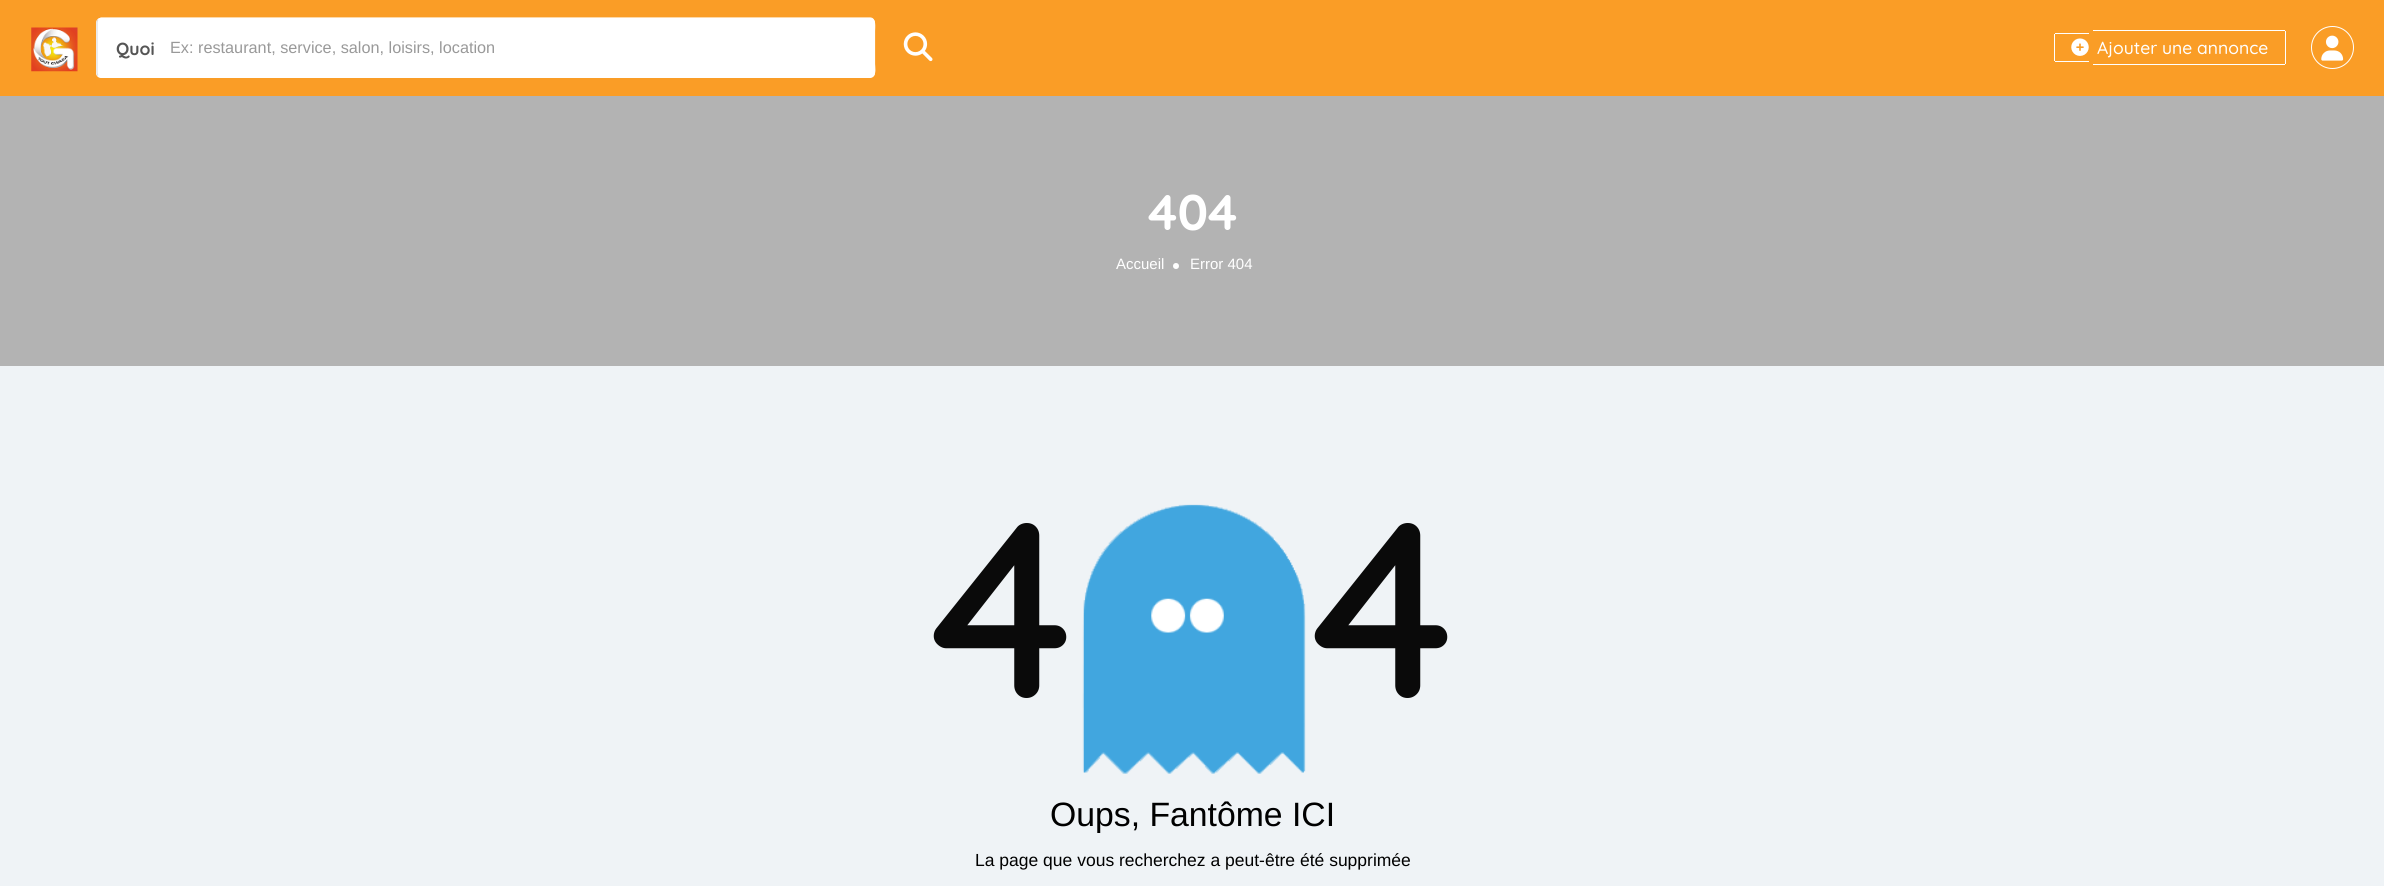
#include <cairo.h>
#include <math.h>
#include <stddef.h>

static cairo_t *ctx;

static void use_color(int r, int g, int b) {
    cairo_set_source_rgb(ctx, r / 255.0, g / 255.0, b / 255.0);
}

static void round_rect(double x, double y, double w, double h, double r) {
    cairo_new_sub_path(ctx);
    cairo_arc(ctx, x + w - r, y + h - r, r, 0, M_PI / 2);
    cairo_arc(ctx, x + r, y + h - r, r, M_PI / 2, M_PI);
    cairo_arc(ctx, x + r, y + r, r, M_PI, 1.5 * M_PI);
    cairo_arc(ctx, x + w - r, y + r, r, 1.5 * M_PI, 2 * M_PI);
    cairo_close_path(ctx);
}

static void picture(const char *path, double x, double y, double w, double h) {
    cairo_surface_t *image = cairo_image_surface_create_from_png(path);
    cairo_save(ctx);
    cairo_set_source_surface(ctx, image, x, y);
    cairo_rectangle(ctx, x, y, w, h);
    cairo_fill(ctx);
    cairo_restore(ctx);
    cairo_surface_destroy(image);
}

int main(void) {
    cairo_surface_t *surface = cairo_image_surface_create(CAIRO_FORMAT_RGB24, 2384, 886);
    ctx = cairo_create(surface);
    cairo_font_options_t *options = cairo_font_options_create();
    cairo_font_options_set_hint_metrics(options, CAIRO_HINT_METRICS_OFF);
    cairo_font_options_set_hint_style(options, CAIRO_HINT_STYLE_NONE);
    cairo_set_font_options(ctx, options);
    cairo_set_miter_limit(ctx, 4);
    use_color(239, 243, 246);
    cairo_paint(ctx);
    use_color(250, 157, 38);
    cairo_rectangle(ctx, 0, 0, 2384, 96);
    cairo_fill(ctx);
    picture("img1.png", 31, 27, 47, 45);
    use_color(255, 255, 255);
    round_rect(96, 18, 779, 60, 5);
    cairo_fill(ctx);
    cairo_new_path(ctx);
    cairo_move_to(ctx, 98, 19.5);
    cairo_line_to(ctx, 101, 18);
    cairo_line_to(ctx, 870, 18);
    cairo_curve_to(ctx, 876, 18, 874.5, 27.5, 874.5, 31);
    cairo_line_to(ctx, 874.5, 64);
    cairo_curve_to(ctx, 874.5, 66.5, 876, 74, 872.5, 76);
    cairo_line_to(ctx, 870, 77);
    cairo_line_to(ctx, 101, 77);
    cairo_line_to(ctx, 98, 75.5);
    cairo_set_line_width(ctx, 1.2);
    cairo_stroke(ctx);
    cairo_new_path(ctx);
    cairo_move_to(ctx, 98, 75.5);
    cairo_curve_to(ctx, 97.5, 75, 97, 73.5, 97, 72.5);
    cairo_line_to(ctx, 97, 22.5);
    cairo_curve_to(ctx, 97, 21.5, 97.5, 20, 98, 19.5);
    use_color(222, 222, 222);
    cairo_stroke(ctx);
    cairo_select_font_face(ctx, "Quicksand", CAIRO_FONT_SLANT_NORMAL, CAIRO_FONT_WEIGHT_BOLD);
    cairo_set_font_size(ctx, 17.5);
    use_color(85, 85, 85);
    cairo_move_to(ctx, 116, 55);
    cairo_show_text(ctx, "Quoi");
    cairo_select_font_face(ctx, "Liberation Sans", CAIRO_FONT_SLANT_NORMAL, CAIRO_FONT_WEIGHT_NORMAL);
    cairo_set_font_size(ctx, 16.25);
    use_color(153, 153, 153);
    cairo_move_to(ctx, 170, 53);
    cairo_show_text(ctx, "Ex: restaurant, service, salon, loisirs, location");
    picture("img2.png", 903, 32, 30, 30);
    use_color(255, 255, 255);
    cairo_rectangle(ctx, 2055, 33, 34, 1);
    cairo_fill(ctx);
    cairo_rectangle(ctx, 2055, 61, 34, 1);
    cairo_fill(ctx);
    cairo_rectangle(ctx, 2054, 34, 1, 27);
    cairo_fill(ctx);
    cairo_rectangle(ctx, 2093, 30, 192, 1);
    cairo_fill(ctx);
    cairo_rectangle(ctx, 2285, 31, 1, 33);
    cairo_fill(ctx);
    cairo_rectangle(ctx, 2093, 64, 192, 1);
    cairo_fill(ctx);
    picture("img3.png", 2071, 38, 18, 18);
    cairo_select_font_face(ctx, "Quicksand Medium", CAIRO_FONT_SLANT_NORMAL, CAIRO_FONT_WEIGHT_NORMAL);
    cairo_set_font_size(ctx, 17.5);
    cairo_move_to(ctx, 2097, 54);
    cairo_show_text(ctx, "Ajouter une annonce");
    cairo_new_path(ctx);
    cairo_arc(ctx, 2332.5, 47.5, 21, 0, 2 * M_PI);
    cairo_set_line_width(ctx, 1);
    cairo_stroke(ctx);
    picture("img4.png", 2321, 35, 23, 26);
    use_color(179, 179, 179);
    cairo_rectangle(ctx, 0, 96, 2384, 270);
    cairo_fill(ctx);
    cairo_select_font_face(ctx, "Quicksand", CAIRO_FONT_SLANT_NORMAL, CAIRO_FONT_WEIGHT_BOLD);
    cairo_set_font_size(ctx, 50);
    use_color(255, 255, 255);
    cairo_move_to(ctx, 1148, 230);
    cairo_show_text(ctx, "404");
    cairo_select_font_face(ctx, "Liberation Sans", CAIRO_FONT_SLANT_NORMAL, CAIRO_FONT_WEIGHT_NORMAL);
    cairo_set_font_size(ctx, 15);
    cairo_move_to(ctx, 1116, 269);
    cairo_show_text(ctx, "Accueil");
    cairo_new_path(ctx);
    cairo_arc(ctx, 1176, 266, 3, 0, 2 * M_PI);
    cairo_fill(ctx);
    cairo_move_to(ctx, 1190, 269);
    cairo_show_text(ctx, "Error 404");
    cairo_select_font_face(ctx, "Quicksand SemiBold", CAIRO_FONT_SLANT_NORMAL, CAIRO_FONT_WEIGHT_NORMAL);
    cairo_set_font_size(ctx, 250);
    use_color(10, 10, 10);
    cairo_move_to(ctx, 931, 698);
    cairo_show_text(ctx, "4");
    picture("img5.png", 1082, 504, 224, 270);
    cairo_move_to(ctx, 1312, 698);
    cairo_show_text(ctx, "4");
    cairo_select_font_face(ctx, "Liberation Sans", CAIRO_FONT_SLANT_NORMAL, CAIRO_FONT_WEIGHT_NORMAL);
    cairo_set_font_size(ctx, 33.75);
    use_color(0, 0, 0);
    cairo_move_to(ctx, 1050, 826);
    cairo_show_text(ctx, "Oups, Fantôme ICI");
    cairo_set_font_size(ctx, 17.5);
    cairo_move_to(ctx, 975, 866);
    cairo_show_text(ctx, "La page que vous recherchez a peut-être été supprimée");
    cairo_surface_write_to_png(surface, "result.png");
    cairo_font_options_destroy(options);
    cairo_destroy(ctx);
    cairo_surface_destroy(surface);
    return 0;
}
